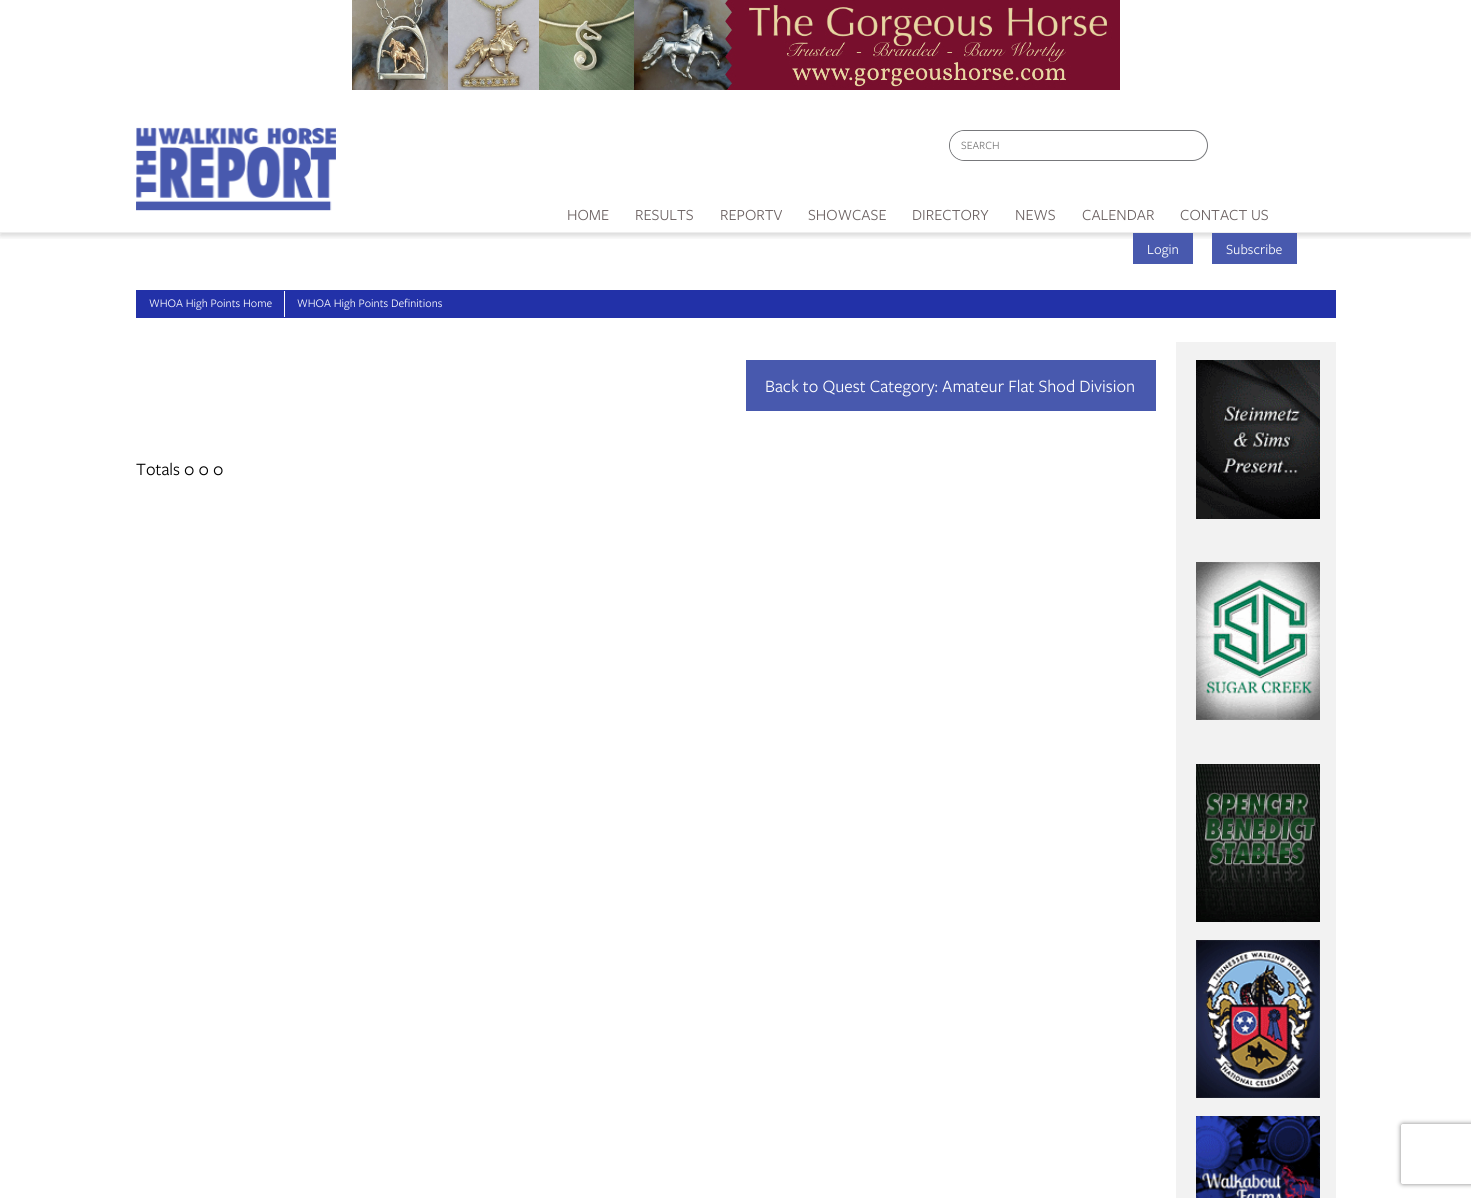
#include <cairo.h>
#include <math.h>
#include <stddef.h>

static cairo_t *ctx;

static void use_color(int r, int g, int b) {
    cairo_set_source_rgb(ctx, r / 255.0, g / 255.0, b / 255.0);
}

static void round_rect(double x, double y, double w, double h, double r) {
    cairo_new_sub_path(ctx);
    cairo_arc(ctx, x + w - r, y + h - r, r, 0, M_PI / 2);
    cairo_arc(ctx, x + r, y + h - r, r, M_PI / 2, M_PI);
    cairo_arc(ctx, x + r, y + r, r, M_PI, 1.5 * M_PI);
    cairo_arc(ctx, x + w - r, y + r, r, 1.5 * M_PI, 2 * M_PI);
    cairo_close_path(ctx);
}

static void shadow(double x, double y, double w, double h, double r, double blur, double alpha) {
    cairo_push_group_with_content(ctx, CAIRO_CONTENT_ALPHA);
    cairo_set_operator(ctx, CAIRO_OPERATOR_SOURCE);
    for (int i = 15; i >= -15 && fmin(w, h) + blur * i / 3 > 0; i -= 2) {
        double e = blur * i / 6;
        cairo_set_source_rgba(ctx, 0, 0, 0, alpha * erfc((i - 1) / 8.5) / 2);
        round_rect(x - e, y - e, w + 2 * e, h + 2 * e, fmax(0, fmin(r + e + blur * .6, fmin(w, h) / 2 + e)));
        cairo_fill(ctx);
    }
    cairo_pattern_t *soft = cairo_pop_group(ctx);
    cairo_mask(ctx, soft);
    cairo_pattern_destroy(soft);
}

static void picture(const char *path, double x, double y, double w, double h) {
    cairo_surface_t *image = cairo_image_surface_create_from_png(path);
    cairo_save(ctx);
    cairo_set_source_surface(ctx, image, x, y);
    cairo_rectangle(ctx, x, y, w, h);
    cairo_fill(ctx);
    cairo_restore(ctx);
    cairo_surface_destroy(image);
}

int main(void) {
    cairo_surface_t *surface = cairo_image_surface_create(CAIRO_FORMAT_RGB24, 1471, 1198);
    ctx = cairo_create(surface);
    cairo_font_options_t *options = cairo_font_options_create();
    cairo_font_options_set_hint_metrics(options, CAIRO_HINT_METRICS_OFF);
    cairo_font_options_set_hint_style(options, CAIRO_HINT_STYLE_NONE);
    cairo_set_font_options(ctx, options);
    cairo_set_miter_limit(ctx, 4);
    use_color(255, 255, 255);
    cairo_paint(ctx);
    cairo_save(ctx);
    cairo_rectangle(ctx, 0, 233, 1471, 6);
    cairo_clip(ctx);
    use_color(0, 0, 0);
    shadow(0, 3, 1471, 233, 0, 2.5, 0.15);
    cairo_restore(ctx);
    use_color(238, 238, 238);
    cairo_rectangle(ctx, 0, 232, 1471, 1);
    cairo_fill(ctx);
    picture("img1.png", 352, 0, 768, 90);
    picture("img2.png", 136, 127, 200, 84);
    cairo_select_font_face(ctx, "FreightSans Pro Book", CAIRO_FONT_SLANT_NORMAL, CAIRO_FONT_WEIGHT_NORMAL);
    cairo_set_font_size(ctx, 16);
    use_color(108, 98, 98);
    cairo_move_to(ctx, 567, 220);
    cairo_show_text(ctx, "HOME");
    cairo_move_to(ctx, 635, 220);
    cairo_show_text(ctx, "RESULTS");
    cairo_move_to(ctx, 720, 220);
    cairo_show_text(ctx, "REPORTV");
    cairo_move_to(ctx, 808, 220);
    cairo_show_text(ctx, "SHOWCASE");
    cairo_move_to(ctx, 912, 220);
    cairo_show_text(ctx, "DIRECTORY");
    round_rect(949.5, 130.5, 258, 30, 15);
    use_color(119, 120, 123);
    cairo_set_line_width(ctx, 1);
    cairo_stroke(ctx);
    use_color(255, 255, 255);
    cairo_new_path(ctx);
    cairo_move_to(ctx, 964.5, 131);
    cairo_line_to(ctx, 1184, 131);
    cairo_line_to(ctx, 1184, 160);
    cairo_line_to(ctx, 964.5, 160);
    cairo_curve_to(ctx, 956.5, 160, 950, 153.5, 950, 145.5);
    cairo_curve_to(ctx, 950, 137.5, 956.5, 131, 964.5, 131);
    cairo_close_path(ctx);
    cairo_fill(ctx);
    cairo_set_font_size(ctx, 11.5);
    use_color(117, 117, 117);
    cairo_move_to(ctx, 961, 149);
    cairo_show_text(ctx, "SEARCH");
    use_color(72, 89, 174);
    cairo_rectangle(ctx, 1133, 233, 60, 31);
    cairo_fill(ctx);
    cairo_set_font_size(ctx, 14.5);
    use_color(255, 255, 255);
    cairo_move_to(ctx, 1147, 254);
    cairo_show_text(ctx, "Login");
    use_color(72, 89, 174);
    cairo_rectangle(ctx, 1212, 233, 85, 31);
    cairo_fill(ctx);
    use_color(255, 255, 255);
    cairo_move_to(ctx, 1226, 254);
    cairo_show_text(ctx, "Subscribe");
    cairo_set_font_size(ctx, 16);
    use_color(108, 98, 98);
    cairo_move_to(ctx, 1015, 220);
    cairo_show_text(ctx, "NEWS");
    cairo_move_to(ctx, 1082, 220);
    cairo_show_text(ctx, "CALENDAR");
    cairo_move_to(ctx, 1180, 220);
    cairo_show_text(ctx, "CONTACT US");
    use_color(34, 49, 168);
    cairo_rectangle(ctx, 136, 290, 1200, 28);
    cairo_fill(ctx);
    use_color(255, 255, 255);
    cairo_rectangle(ctx, 284, 291, 1, 26);
    cairo_fill(ctx);
    cairo_set_font_size(ctx, 12);
    cairo_move_to(ctx, 149, 307);
    cairo_show_text(ctx, "WHOA High Points Home");
    cairo_move_to(ctx, 297, 307);
    cairo_show_text(ctx, "WHOA High Points Definitions");
    use_color(72, 89, 174);
    cairo_rectangle(ctx, 746, 360, 410, 51);
    cairo_fill(ctx);
    cairo_set_font_size(ctx, 18);
    use_color(255, 255, 255);
    cairo_move_to(ctx, 765, 392);
    cairo_show_text(ctx, "Back to Quest Category: Amateur Flat Shod Division");
    use_color(0, 0, 0);
    cairo_move_to(ctx, 136, 475);
    cairo_show_text(ctx, "Totals 0 0 0");
    use_color(242, 242, 242);
    cairo_rectangle(ctx, 1176, 342, 160, 856);
    cairo_fill(ctx);
    picture("img3.png", 1196, 360, 124, 159);
    picture("img4.png", 1196, 562, 124, 158);
    picture("img5.png", 1196, 764, 124, 158);
    picture("img6.png", 1196, 940, 124, 158);
    picture("img7.png", 1196, 1116, 124, 82);
    cairo_save(ctx);
    cairo_set_fill_rule(ctx, CAIRO_FILL_RULE_EVEN_ODD);
    cairo_new_path(ctx);
    cairo_move_to(ctx, 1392, 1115);
    cairo_line_to(ctx, 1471, 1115);
    cairo_line_to(ctx, 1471, 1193);
    cairo_line_to(ctx, 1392, 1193);
    cairo_close_path(ctx);
    cairo_move_to(ctx, 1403, 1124);
    cairo_line_to(ctx, 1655, 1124);
    cairo_curve_to(ctx, 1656, 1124, 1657, 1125, 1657, 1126);
    cairo_line_to(ctx, 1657, 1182);
    cairo_curve_to(ctx, 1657, 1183, 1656, 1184, 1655, 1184);
    cairo_line_to(ctx, 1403, 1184);
    cairo_curve_to(ctx, 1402, 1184, 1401, 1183, 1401, 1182);
    cairo_line_to(ctx, 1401, 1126);
    cairo_curve_to(ctx, 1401, 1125, 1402, 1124, 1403, 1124);
    cairo_close_path(ctx);
    cairo_clip(ctx);
    use_color(128, 128, 128);
    shadow(1401, 1124, 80, 60, 2, 2.5, 1);
    cairo_restore(ctx);
    cairo_surface_write_to_png(surface, "result.png");
    cairo_font_options_destroy(options);
    cairo_destroy(ctx);
    cairo_surface_destroy(surface);
    return 0;
}
